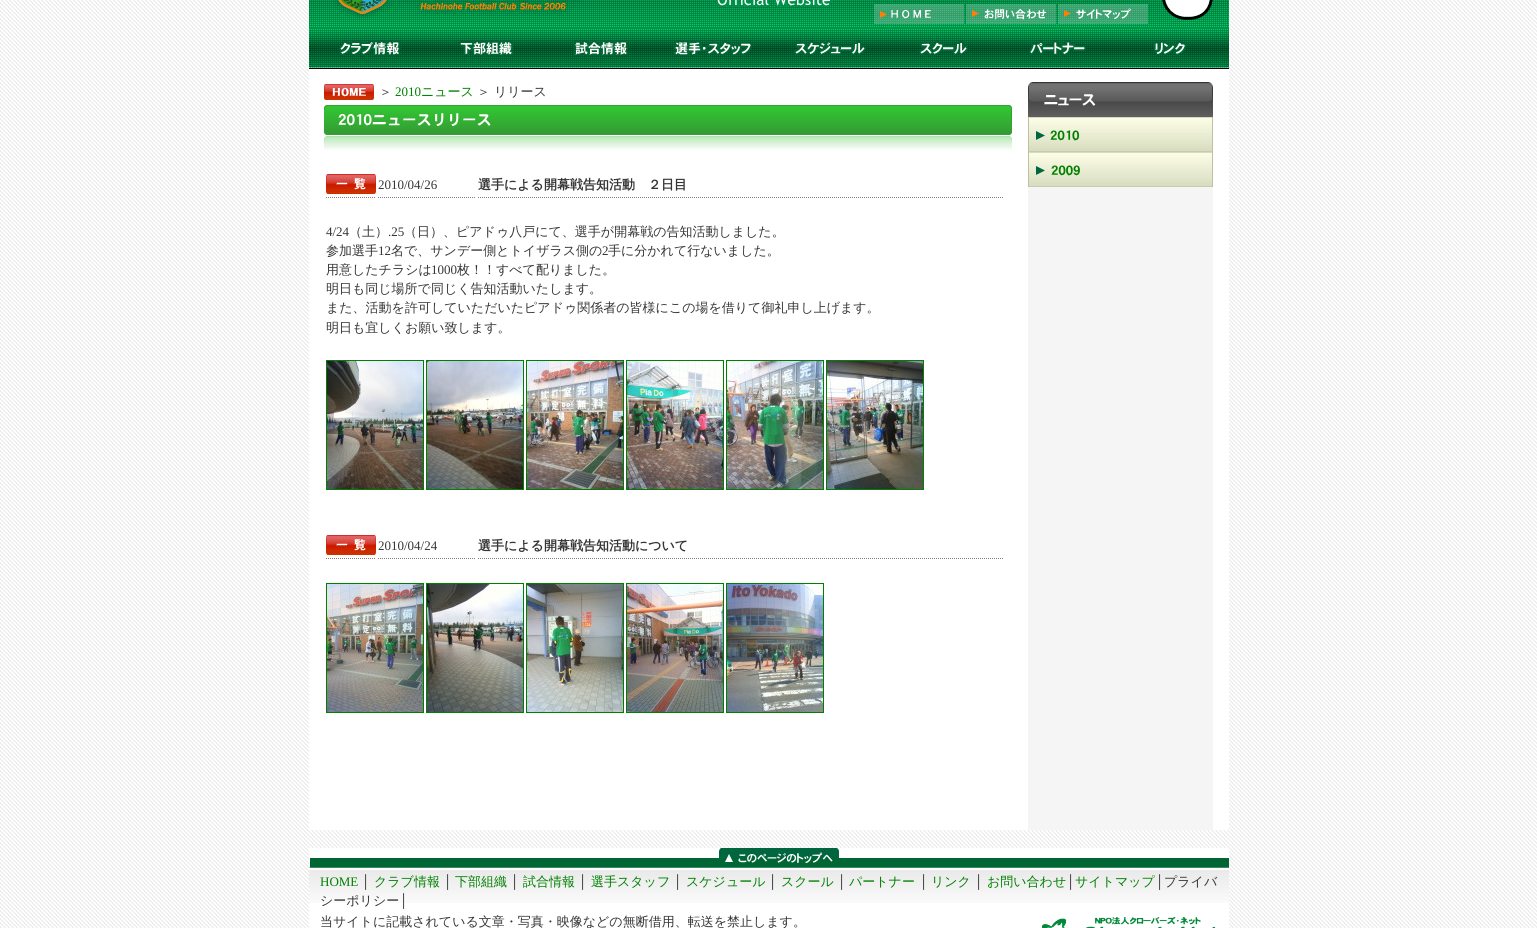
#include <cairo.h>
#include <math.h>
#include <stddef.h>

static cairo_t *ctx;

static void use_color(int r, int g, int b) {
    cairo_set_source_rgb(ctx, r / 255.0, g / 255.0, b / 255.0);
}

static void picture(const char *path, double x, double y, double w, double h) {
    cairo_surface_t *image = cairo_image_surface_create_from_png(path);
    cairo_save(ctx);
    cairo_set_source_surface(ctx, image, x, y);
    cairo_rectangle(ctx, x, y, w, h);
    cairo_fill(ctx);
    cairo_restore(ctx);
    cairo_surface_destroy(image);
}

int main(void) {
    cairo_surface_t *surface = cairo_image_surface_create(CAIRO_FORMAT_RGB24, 1537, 928);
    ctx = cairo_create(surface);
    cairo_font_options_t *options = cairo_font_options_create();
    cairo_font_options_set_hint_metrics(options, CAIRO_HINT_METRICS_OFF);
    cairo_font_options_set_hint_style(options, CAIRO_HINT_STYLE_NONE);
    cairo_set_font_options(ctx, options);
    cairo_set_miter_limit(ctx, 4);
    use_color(255, 255, 255);
    cairo_paint(ctx);
    picture("img1.png", 0, 0, 1537, 928);
    picture("img2.png", 309, 0, 920, 28);
    picture("img3.png", 874, 4, 90, 20);
    picture("img4.png", 966, 4, 90, 20);
    picture("img5.png", 1058, 4, 90, 20);
    picture("img6.png", 309, 28, 115, 40);
    picture("img7.png", 424, 28, 115, 40);
    picture("img8.png", 539, 28, 115, 40);
    picture("img9.png", 654, 28, 115, 40);
    picture("img10.png", 769, 28, 115, 40);
    picture("img11.png", 884, 28, 115, 40);
    picture("img12.png", 999, 28, 115, 40);
    picture("img13.png", 1114, 28, 115, 40);
    use_color(255, 255, 255);
    cairo_rectangle(ctx, 309, 69, 920, 13);
    cairo_fill(ctx);
    use_color(0, 0, 0);
    cairo_rectangle(ctx, 309, 68, 920, 1);
    cairo_fill(ctx);
    use_color(255, 255, 255);
    cairo_rectangle(ctx, 309, 82, 719, 748);
    cairo_fill(ctx);
    use_color(245, 245, 245);
    cairo_rectangle(ctx, 1028, 187, 185, 643);
    cairo_fill(ctx);
    picture("img14.png", 1028, 82, 185, 35);
    picture("img15.png", 1028, 117, 185, 35);
    picture("img16.png", 1028, 152, 185, 35);
    use_color(255, 255, 255);
    cairo_rectangle(ctx, 1213, 82, 16, 748);
    cairo_fill(ctx);
    picture("img17.png", 324, 84, 50, 16);
    cairo_select_font_face(ctx, "WenQuanYi Zen Hei Medium", CAIRO_FONT_SLANT_NORMAL, CAIRO_FONT_WEIGHT_NORMAL);
    cairo_set_font_size(ctx, 13);
    use_color(53, 53, 53);
    cairo_move_to(ctx, 379, 96);
    cairo_show_text(ctx, "＞");
    cairo_select_font_face(ctx, "Liberation Serif", CAIRO_FONT_SLANT_NORMAL, CAIRO_FONT_WEIGHT_NORMAL);
    use_color(0, 128, 0);
    cairo_move_to(ctx, 395, 96);
    cairo_show_text(ctx, "2010");
    cairo_select_font_face(ctx, "WenQuanYi Zen Hei Medium", CAIRO_FONT_SLANT_NORMAL, CAIRO_FONT_WEIGHT_NORMAL);
    cairo_move_to(ctx, 421, 96);
    cairo_show_text(ctx, "ニュース");
    use_color(53, 53, 53);
    cairo_move_to(ctx, 477, 96);
    cairo_show_text(ctx, "＞ リリース");
    picture("img18.png", 324, 105, 688, 45);
    cairo_new_path(ctx);
    cairo_move_to(ctx, 326, 197.5);
    cairo_line_to(ctx, 376, 197.5);
    use_color(128, 128, 128);
    cairo_set_line_width(ctx, 1);
    cairo_set_dash(ctx, (double[]){1, 1}, 2, 0);
    cairo_stroke(ctx);
    picture("img19.png", 326, 174, 50, 20);
    cairo_new_path(ctx);
    cairo_move_to(ctx, 378, 197.5);
    cairo_line_to(ctx, 476, 197.5);
    cairo_stroke(ctx);
    cairo_select_font_face(ctx, "Liberation Serif", CAIRO_FONT_SLANT_NORMAL, CAIRO_FONT_WEIGHT_NORMAL);
    use_color(53, 53, 53);
    cairo_move_to(ctx, 378, 189);
    cairo_show_text(ctx, "2010/04/26");
    cairo_new_path(ctx);
    cairo_move_to(ctx, 478, 197.5);
    cairo_line_to(ctx, 1004, 197.5);
    use_color(128, 128, 128);
    cairo_stroke(ctx);
    cairo_select_font_face(ctx, "WenQuanYi Zen Hei", CAIRO_FONT_SLANT_NORMAL, CAIRO_FONT_WEIGHT_BOLD);
    use_color(53, 53, 53);
    cairo_move_to(ctx, 478, 189);
    cairo_show_text(ctx, "選手による開幕戦告知活動　２日目");
    cairo_select_font_face(ctx, "Liberation Serif", CAIRO_FONT_SLANT_NORMAL, CAIRO_FONT_WEIGHT_NORMAL);
    cairo_move_to(ctx, 326, 236);
    cairo_show_text(ctx, "4/24");
    cairo_select_font_face(ctx, "WenQuanYi Zen Hei Medium", CAIRO_FONT_SLANT_NORMAL, CAIRO_FONT_WEIGHT_NORMAL);
    cairo_move_to(ctx, 349, 236);
    cairo_show_text(ctx, "（土）");
    cairo_select_font_face(ctx, "Liberation Serif", CAIRO_FONT_SLANT_NORMAL, CAIRO_FONT_WEIGHT_NORMAL);
    cairo_move_to(ctx, 388, 236);
    cairo_show_text(ctx, ".25");
    cairo_select_font_face(ctx, "WenQuanYi Zen Hei Medium", CAIRO_FONT_SLANT_NORMAL, CAIRO_FONT_WEIGHT_NORMAL);
    cairo_move_to(ctx, 404, 236);
    cairo_show_text(ctx, "（日）、ピアドゥ八戸にて、選手が開幕戦の告知活動しました。");
    cairo_move_to(ctx, 326, 255);
    cairo_show_text(ctx, "参加選手");
    cairo_select_font_face(ctx, "Liberation Serif", CAIRO_FONT_SLANT_NORMAL, CAIRO_FONT_WEIGHT_NORMAL);
    cairo_move_to(ctx, 378, 255);
    cairo_show_text(ctx, "12");
    cairo_select_font_face(ctx, "WenQuanYi Zen Hei Medium", CAIRO_FONT_SLANT_NORMAL, CAIRO_FONT_WEIGHT_NORMAL);
    cairo_move_to(ctx, 391, 255);
    cairo_show_text(ctx, "名で、サンデー側とトイザラス側の");
    cairo_select_font_face(ctx, "Liberation Serif", CAIRO_FONT_SLANT_NORMAL, CAIRO_FONT_WEIGHT_NORMAL);
    cairo_move_to(ctx, 602, 255);
    cairo_show_text(ctx, "2");
    cairo_select_font_face(ctx, "WenQuanYi Zen Hei Medium", CAIRO_FONT_SLANT_NORMAL, CAIRO_FONT_WEIGHT_NORMAL);
    cairo_move_to(ctx, 608, 255);
    cairo_show_text(ctx, "手に分かれて行ないました。");
    cairo_move_to(ctx, 326, 274);
    cairo_show_text(ctx, "用意したチラシは");
    cairo_select_font_face(ctx, "Liberation Serif", CAIRO_FONT_SLANT_NORMAL, CAIRO_FONT_WEIGHT_NORMAL);
    cairo_move_to(ctx, 431, 274);
    cairo_show_text(ctx, "1000");
    cairo_select_font_face(ctx, "WenQuanYi Zen Hei Medium", CAIRO_FONT_SLANT_NORMAL, CAIRO_FONT_WEIGHT_NORMAL);
    cairo_move_to(ctx, 457, 274);
    cairo_show_text(ctx, "枚！！すべて配りました。");
    cairo_move_to(ctx, 326, 293);
    cairo_show_text(ctx, "明日も同じ場所で同じく告知活動いたします。");
    cairo_move_to(ctx, 326, 312);
    cairo_show_text(ctx, "また、活動を許可していただいたピアドゥ関係者の皆様にこの場を借りて御礼申し上げます。");
    cairo_move_to(ctx, 326, 332);
    cairo_show_text(ctx, "明日も宜しくお願い致します。");
    cairo_rectangle(ctx, 326.5, 360.5, 97, 129);
    use_color(0, 128, 0);
    cairo_set_dash(ctx, NULL, 0, 0);
    cairo_stroke(ctx);
    picture("img20.png", 327, 361, 96, 128);
    cairo_rectangle(ctx, 426.5, 360.5, 97, 129);
    cairo_stroke(ctx);
    picture("img21.png", 427, 361, 96, 128);
    cairo_rectangle(ctx, 526.5, 360.5, 97, 129);
    cairo_stroke(ctx);
    picture("img22.png", 527, 361, 96, 128);
    cairo_rectangle(ctx, 626.5, 360.5, 97, 129);
    cairo_stroke(ctx);
    picture("img23.png", 627, 361, 96, 128);
    cairo_rectangle(ctx, 726.5, 360.5, 97, 129);
    cairo_stroke(ctx);
    picture("img24.png", 727, 361, 96, 128);
    cairo_rectangle(ctx, 826.5, 360.5, 97, 129);
    cairo_stroke(ctx);
    picture("img25.png", 827, 361, 96, 128);
    cairo_new_path(ctx);
    cairo_move_to(ctx, 326, 558.5);
    cairo_line_to(ctx, 376, 558.5);
    use_color(128, 128, 128);
    cairo_set_dash(ctx, (double[]){1, 1}, 2, 0);
    cairo_stroke(ctx);
    picture("img19.png", 326, 535, 50, 20);
    cairo_new_path(ctx);
    cairo_move_to(ctx, 378, 558.5);
    cairo_line_to(ctx, 476, 558.5);
    cairo_stroke(ctx);
    cairo_select_font_face(ctx, "Liberation Serif", CAIRO_FONT_SLANT_NORMAL, CAIRO_FONT_WEIGHT_NORMAL);
    use_color(53, 53, 53);
    cairo_move_to(ctx, 378, 550);
    cairo_show_text(ctx, "2010/04/24");
    cairo_new_path(ctx);
    cairo_move_to(ctx, 478, 558.5);
    cairo_line_to(ctx, 1004, 558.5);
    use_color(128, 128, 128);
    cairo_stroke(ctx);
    cairo_select_font_face(ctx, "WenQuanYi Zen Hei", CAIRO_FONT_SLANT_NORMAL, CAIRO_FONT_WEIGHT_BOLD);
    use_color(53, 53, 53);
    cairo_move_to(ctx, 478, 550);
    cairo_show_text(ctx, "選手による開幕戦告知活動について");
    cairo_rectangle(ctx, 326.5, 583.5, 97, 129);
    use_color(0, 128, 0);
    cairo_set_dash(ctx, NULL, 0, 0);
    cairo_stroke(ctx);
    picture("img26.png", 327, 584, 96, 128);
    cairo_rectangle(ctx, 426.5, 583.5, 97, 129);
    cairo_stroke(ctx);
    picture("img27.png", 427, 584, 96, 128);
    cairo_rectangle(ctx, 526.5, 583.5, 97, 129);
    cairo_stroke(ctx);
    picture("img28.png", 527, 584, 96, 128);
    cairo_rectangle(ctx, 626.5, 583.5, 97, 129);
    cairo_stroke(ctx);
    picture("img29.png", 627, 584, 96, 128);
    cairo_rectangle(ctx, 726.5, 583.5, 97, 129);
    cairo_stroke(ctx);
    picture("img30.png", 727, 584, 96, 128);
    use_color(255, 255, 255);
    cairo_rectangle(ctx, 309, 868, 920, 2);
    cairo_fill(ctx);
    picture("img31.png", 309, 848, 920, 20);
    cairo_rectangle(ctx, 309, 903, 920, 25);
    cairo_fill(ctx);
    picture("img32.png", 309, 870, 920, 33);
    cairo_select_font_face(ctx, "Liberation Serif", CAIRO_FONT_SLANT_NORMAL, CAIRO_FONT_WEIGHT_NORMAL);
    use_color(0, 128, 0);
    cairo_move_to(ctx, 320, 886);
    cairo_show_text(ctx, "HOME");
    use_color(53, 53, 53);
    cairo_move_to(ctx, 361, 886);
    cairo_show_text(ctx, "│");
    cairo_select_font_face(ctx, "WenQuanYi Zen Hei Medium", CAIRO_FONT_SLANT_NORMAL, CAIRO_FONT_WEIGHT_NORMAL);
    use_color(0, 128, 0);
    cairo_move_to(ctx, 374, 886);
    cairo_show_text(ctx, "クラブ情報");
    cairo_select_font_face(ctx, "Liberation Serif", CAIRO_FONT_SLANT_NORMAL, CAIRO_FONT_WEIGHT_NORMAL);
    use_color(53, 53, 53);
    cairo_move_to(ctx, 443, 886);
    cairo_show_text(ctx, "│");
    cairo_select_font_face(ctx, "WenQuanYi Zen Hei Medium", CAIRO_FONT_SLANT_NORMAL, CAIRO_FONT_WEIGHT_NORMAL);
    use_color(0, 128, 0);
    cairo_move_to(ctx, 455, 886);
    cairo_show_text(ctx, "下部組織");
    cairo_select_font_face(ctx, "Liberation Serif", CAIRO_FONT_SLANT_NORMAL, CAIRO_FONT_WEIGHT_NORMAL);
    use_color(53, 53, 53);
    cairo_move_to(ctx, 510, 886);
    cairo_show_text(ctx, "│");
    cairo_select_font_face(ctx, "WenQuanYi Zen Hei Medium", CAIRO_FONT_SLANT_NORMAL, CAIRO_FONT_WEIGHT_NORMAL);
    use_color(0, 128, 0);
    cairo_move_to(ctx, 523, 886);
    cairo_show_text(ctx, "試合情報");
    cairo_select_font_face(ctx, "Liberation Serif", CAIRO_FONT_SLANT_NORMAL, CAIRO_FONT_WEIGHT_NORMAL);
    use_color(53, 53, 53);
    cairo_move_to(ctx, 578, 886);
    cairo_show_text(ctx, "│");
    cairo_select_font_face(ctx, "WenQuanYi Zen Hei Medium", CAIRO_FONT_SLANT_NORMAL, CAIRO_FONT_WEIGHT_NORMAL);
    use_color(0, 128, 0);
    cairo_move_to(ctx, 591, 886);
    cairo_show_text(ctx, "選手スタッフ");
    cairo_select_font_face(ctx, "Liberation Serif", CAIRO_FONT_SLANT_NORMAL, CAIRO_FONT_WEIGHT_NORMAL);
    use_color(53, 53, 53);
    cairo_move_to(ctx, 673, 886);
    cairo_show_text(ctx, "│");
    cairo_select_font_face(ctx, "WenQuanYi Zen Hei Medium", CAIRO_FONT_SLANT_NORMAL, CAIRO_FONT_WEIGHT_NORMAL);
    use_color(0, 128, 0);
    cairo_move_to(ctx, 686, 886);
    cairo_show_text(ctx, "スケジュール");
    cairo_select_font_face(ctx, "Liberation Serif", CAIRO_FONT_SLANT_NORMAL, CAIRO_FONT_WEIGHT_NORMAL);
    use_color(53, 53, 53);
    cairo_move_to(ctx, 768, 886);
    cairo_show_text(ctx, "│");
    cairo_select_font_face(ctx, "WenQuanYi Zen Hei Medium", CAIRO_FONT_SLANT_NORMAL, CAIRO_FONT_WEIGHT_NORMAL);
    use_color(0, 128, 0);
    cairo_move_to(ctx, 781, 886);
    cairo_show_text(ctx, "スクール");
    cairo_select_font_face(ctx, "Liberation Serif", CAIRO_FONT_SLANT_NORMAL, CAIRO_FONT_WEIGHT_NORMAL);
    use_color(53, 53, 53);
    cairo_move_to(ctx, 837, 886);
    cairo_show_text(ctx, "│");
    cairo_select_font_face(ctx, "WenQuanYi Zen Hei Medium", CAIRO_FONT_SLANT_NORMAL, CAIRO_FONT_WEIGHT_NORMAL);
    use_color(0, 128, 0);
    cairo_move_to(ctx, 849, 886);
    cairo_show_text(ctx, "パートナー");
    cairo_select_font_face(ctx, "Liberation Serif", CAIRO_FONT_SLANT_NORMAL, CAIRO_FONT_WEIGHT_NORMAL);
    use_color(53, 53, 53);
    cairo_move_to(ctx, 919, 886);
    cairo_show_text(ctx, "│");
    cairo_select_font_face(ctx, "WenQuanYi Zen Hei Medium", CAIRO_FONT_SLANT_NORMAL, CAIRO_FONT_WEIGHT_NORMAL);
    use_color(0, 128, 0);
    cairo_move_to(ctx, 931, 886);
    cairo_show_text(ctx, "リンク");
    cairo_select_font_face(ctx, "Liberation Serif", CAIRO_FONT_SLANT_NORMAL, CAIRO_FONT_WEIGHT_NORMAL);
    use_color(53, 53, 53);
    cairo_move_to(ctx, 974, 886);
    cairo_show_text(ctx, "│");
    cairo_select_font_face(ctx, "WenQuanYi Zen Hei Medium", CAIRO_FONT_SLANT_NORMAL, CAIRO_FONT_WEIGHT_NORMAL);
    use_color(0, 128, 0);
    cairo_move_to(ctx, 987, 886);
    cairo_show_text(ctx, "お問い合わせ");
    cairo_select_font_face(ctx, "Liberation Serif", CAIRO_FONT_SLANT_NORMAL, CAIRO_FONT_WEIGHT_NORMAL);
    use_color(53, 53, 53);
    cairo_move_to(ctx, 1066, 886);
    cairo_show_text(ctx, "│");
    cairo_select_font_face(ctx, "WenQuanYi Zen Hei Medium", CAIRO_FONT_SLANT_NORMAL, CAIRO_FONT_WEIGHT_NORMAL);
    use_color(0, 128, 0);
    cairo_move_to(ctx, 1075, 886);
    cairo_show_text(ctx, "サイトマップ");
    cairo_select_font_face(ctx, "Liberation Serif", CAIRO_FONT_SLANT_NORMAL, CAIRO_FONT_WEIGHT_NORMAL);
    use_color(53, 53, 53);
    cairo_move_to(ctx, 1155, 886);
    cairo_show_text(ctx, "│");
    cairo_select_font_face(ctx, "WenQuanYi Zen Hei Medium", CAIRO_FONT_SLANT_NORMAL, CAIRO_FONT_WEIGHT_NORMAL);
    cairo_move_to(ctx, 1164, 886);
    cairo_show_text(ctx, "プライバ");
    cairo_move_to(ctx, 320, 905);
    cairo_show_text(ctx, "シーポリシー");
    cairo_select_font_face(ctx, "Liberation Serif", CAIRO_FONT_SLANT_NORMAL, CAIRO_FONT_WEIGHT_NORMAL);
    cairo_move_to(ctx, 399, 905);
    cairo_show_text(ctx, "│");
    cairo_select_font_face(ctx, "WenQuanYi Zen Hei Medium", CAIRO_FONT_SLANT_NORMAL, CAIRO_FONT_WEIGHT_NORMAL);
    cairo_move_to(ctx, 320, 926);
    cairo_show_text(ctx, "当サイトに記載されている文章・写真・映像などの無断借用、転送を禁止します。");
    picture("img33.png", 1042, 917, 173, 11);
    cairo_surface_write_to_png(surface, "result.png");
    cairo_font_options_destroy(options);
    cairo_destroy(ctx);
    cairo_surface_destroy(surface);
    return 0;
}
